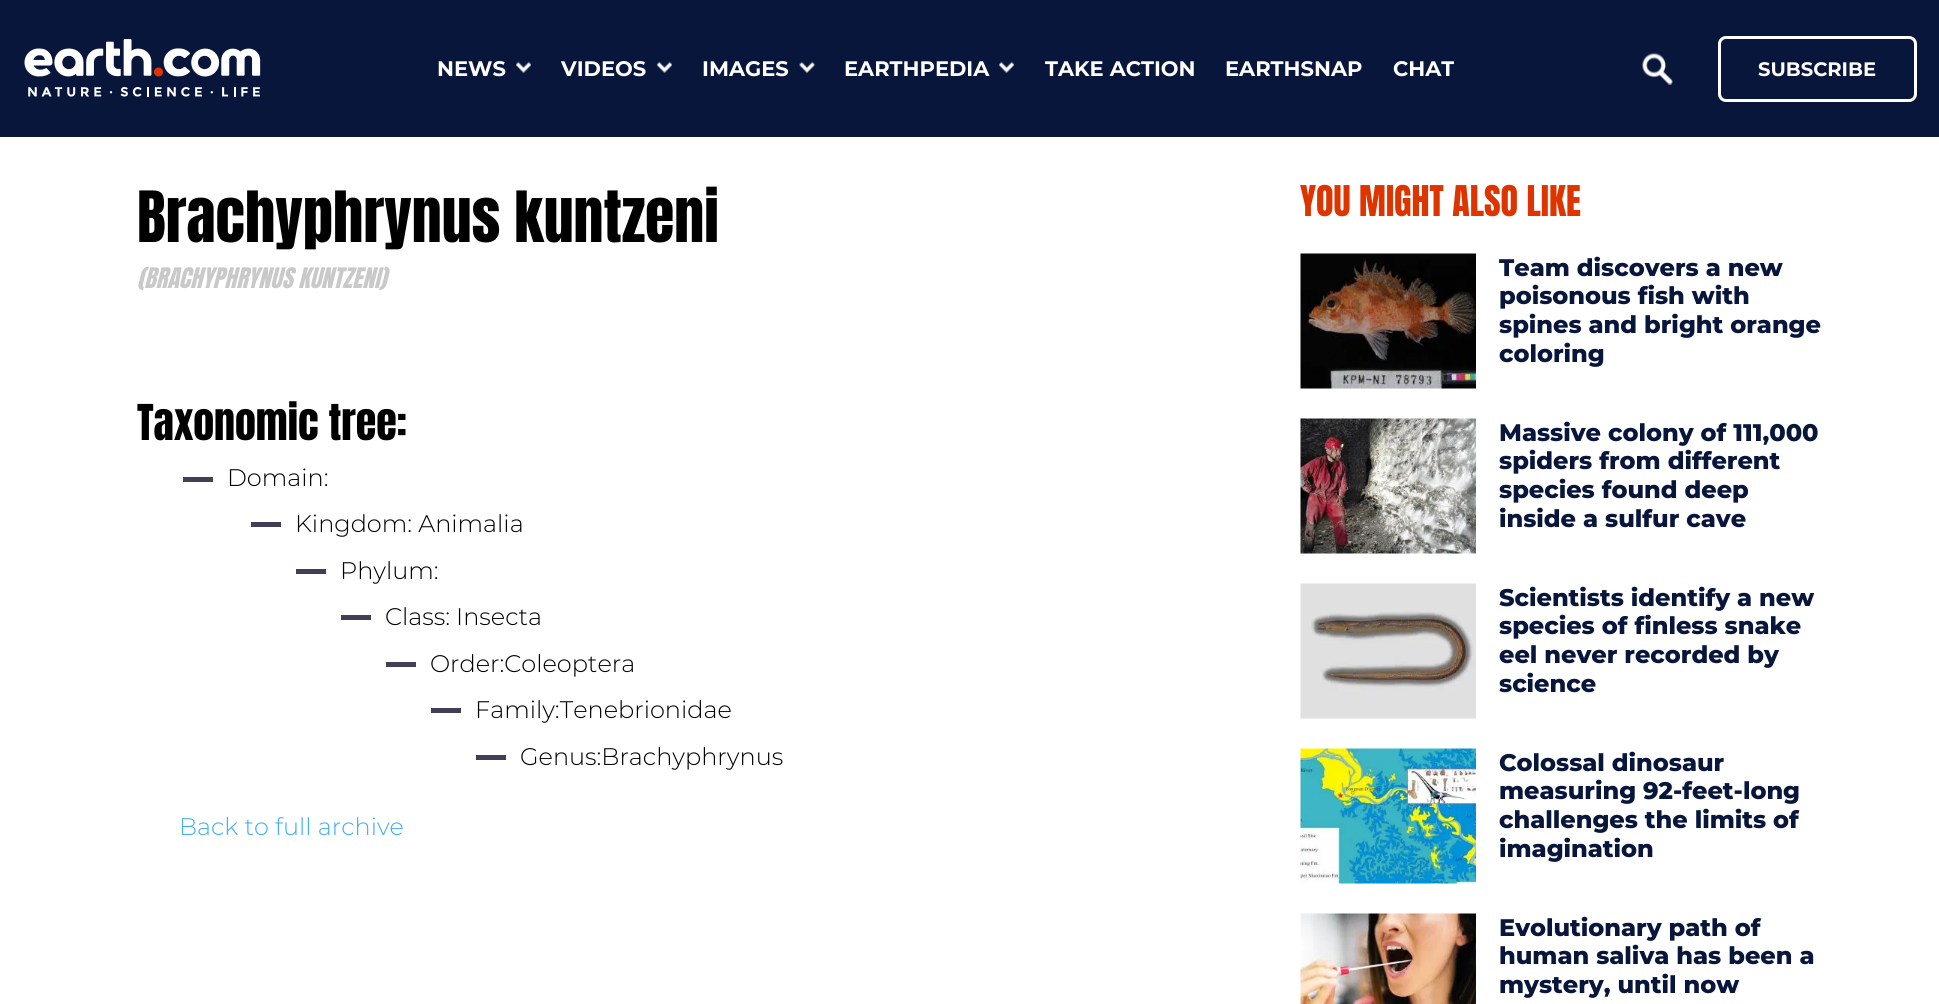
#include <cairo.h>
#include <math.h>
#include <stddef.h>

static cairo_t *ctx;

static void use_color(int r, int g, int b) {
    cairo_set_source_rgb(ctx, r / 255.0, g / 255.0, b / 255.0);
}

static void round_rect(double x, double y, double w, double h, double r) {
    cairo_new_sub_path(ctx);
    cairo_arc(ctx, x + w - r, y + h - r, r, 0, M_PI / 2);
    cairo_arc(ctx, x + r, y + h - r, r, M_PI / 2, M_PI);
    cairo_arc(ctx, x + r, y + r, r, M_PI, 1.5 * M_PI);
    cairo_arc(ctx, x + w - r, y + r, r, 1.5 * M_PI, 2 * M_PI);
    cairo_close_path(ctx);
}

static void picture(const char *path, double x, double y, double w, double h) {
    cairo_surface_t *image = cairo_image_surface_create_from_png(path);
    cairo_save(ctx);
    cairo_set_source_surface(ctx, image, x, y);
    cairo_rectangle(ctx, x, y, w, h);
    cairo_fill(ctx);
    cairo_restore(ctx);
    cairo_surface_destroy(image);
}

int main(void) {
    cairo_surface_t *surface = cairo_image_surface_create(CAIRO_FORMAT_RGB24, 1939, 1004);
    ctx = cairo_create(surface);
    cairo_font_options_t *options = cairo_font_options_create();
    cairo_font_options_set_hint_metrics(options, CAIRO_HINT_METRICS_OFF);
    cairo_font_options_set_hint_style(options, CAIRO_HINT_STYLE_NONE);
    cairo_set_font_options(ctx, options);
    cairo_set_miter_limit(ctx, 4);
    use_color(255, 255, 255);
    cairo_paint(ctx);
    use_color(8, 22, 59);
    cairo_rectangle(ctx, 0, 0, 1939, 137);
    cairo_fill(ctx);
    picture("img1.png", 24, 39, 237, 58);
    cairo_select_font_face(ctx, "Montserrat", CAIRO_FONT_SLANT_NORMAL, CAIRO_FONT_WEIGHT_BOLD);
    cairo_set_font_size(ctx, 21);
    use_color(255, 255, 255);
    cairo_move_to(ctx, 437, 76);
    cairo_show_text(ctx, "NEWS");
    picture("img2.png", 516, 61, 15, 13);
    cairo_move_to(ctx, 561, 76);
    cairo_show_text(ctx, "VIDEOS");
    picture("img2.png", 657, 61, 15, 13);
    cairo_move_to(ctx, 702, 76);
    cairo_show_text(ctx, "IMAGES");
    picture("img3.png", 799, 61, 16, 13);
    cairo_move_to(ctx, 844, 76);
    cairo_show_text(ctx, "EARTHPEDIA");
    picture("img2.png", 999, 61, 15, 13);
    cairo_move_to(ctx, 1045, 76);
    cairo_show_text(ctx, "TAKE ACTION");
    cairo_move_to(ctx, 1225, 76);
    cairo_show_text(ctx, "EARTHSNAP");
    cairo_move_to(ctx, 1393, 76);
    cairo_show_text(ctx, "CHAT");
    picture("img4.png", 1642, 53, 31, 32);
    round_rect(1719.5, 37.5, 196, 63, 6.5);
    cairo_set_line_width(ctx, 3);
    cairo_stroke(ctx);
    cairo_set_font_size(ctx, 19.5);
    cairo_move_to(ctx, 1758, 76);
    cairo_show_text(ctx, "SUBSCRIBE");
    cairo_select_font_face(ctx, "Anton", CAIRO_FONT_SLANT_NORMAL, CAIRO_FONT_WEIGHT_NORMAL);
    cairo_set_font_size(ctx, 60);
    use_color(0, 0, 0);
    cairo_move_to(ctx, 137, 242);
    cairo_show_text(ctx, "Brachyphrynus kuntzeni");
    cairo_select_font_face(ctx, "Anton", CAIRO_FONT_SLANT_ITALIC, CAIRO_FONT_WEIGHT_NORMAL);
    cairo_set_font_size(ctx, 24);
    use_color(201, 201, 201);
    cairo_move_to(ctx, 137, 288);
    cairo_show_text(ctx, "(BRACHYPHRYNUS KUNTZENI)");
    cairo_select_font_face(ctx, "Anton", CAIRO_FONT_SLANT_NORMAL, CAIRO_FONT_WEIGHT_NORMAL);
    cairo_set_font_size(ctx, 42);
    use_color(0, 0, 0);
    cairo_move_to(ctx, 137, 440);
    cairo_show_text(ctx, "Taxonomic tree:");
    use_color(67, 62, 88);
    cairo_rectangle(ctx, 183, 477, 30, 5);
    cairo_fill(ctx);
    cairo_select_font_face(ctx, "Montserrat Light", CAIRO_FONT_SLANT_NORMAL, CAIRO_FONT_WEIGHT_NORMAL);
    cairo_set_font_size(ctx, 24);
    use_color(0, 0, 0);
    cairo_move_to(ctx, 227, 486);
    cairo_show_text(ctx, "Domain:");
    use_color(67, 62, 88);
    cairo_rectangle(ctx, 251, 522, 30, 5);
    cairo_fill(ctx);
    use_color(0, 0, 0);
    cairo_move_to(ctx, 295, 532);
    cairo_show_text(ctx, "Kingdom: Animalia");
    use_color(67, 62, 88);
    cairo_rectangle(ctx, 296, 569, 30, 5);
    cairo_fill(ctx);
    use_color(0, 0, 0);
    cairo_move_to(ctx, 340, 579);
    cairo_show_text(ctx, "Phylum:");
    use_color(67, 62, 88);
    cairo_rectangle(ctx, 341, 615, 30, 5);
    cairo_fill(ctx);
    use_color(0, 0, 0);
    cairo_move_to(ctx, 385, 625);
    cairo_show_text(ctx, "Class: Insecta");
    use_color(67, 62, 88);
    cairo_rectangle(ctx, 386, 662, 30, 5);
    cairo_fill(ctx);
    use_color(0, 0, 0);
    cairo_move_to(ctx, 430, 672);
    cairo_show_text(ctx, "Order:Coleoptera");
    use_color(67, 62, 88);
    cairo_rectangle(ctx, 431, 708, 30, 5);
    cairo_fill(ctx);
    use_color(0, 0, 0);
    cairo_move_to(ctx, 475, 718);
    cairo_show_text(ctx, "Family:Tenebrionidae");
    use_color(67, 62, 88);
    cairo_rectangle(ctx, 476, 755, 30, 5);
    cairo_fill(ctx);
    use_color(0, 0, 0);
    cairo_move_to(ctx, 520, 765);
    cairo_show_text(ctx, "Genus:Brachyphrynus");
    cairo_select_font_face(ctx, "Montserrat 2 Light", CAIRO_FONT_SLANT_NORMAL, CAIRO_FONT_WEIGHT_NORMAL);
    use_color(66, 175, 244);
    cairo_move_to(ctx, 179, 835);
    cairo_show_text(ctx, "Back to full archive");
    cairo_select_font_face(ctx, "Anton", CAIRO_FONT_SLANT_NORMAL, CAIRO_FONT_WEIGHT_NORMAL);
    cairo_set_font_size(ctx, 36);
    use_color(222, 52, 0);
    cairo_move_to(ctx, 1300, 216);
    cairo_show_text(ctx, "YOU MIGHT ALSO LIKE");
    picture("img5.png", 1300, 253, 176, 136);
    cairo_select_font_face(ctx, "Montserrat ExtraBold", CAIRO_FONT_SLANT_NORMAL, CAIRO_FONT_WEIGHT_NORMAL);
    cairo_set_font_size(ctx, 24);
    use_color(8, 22, 59);
    cairo_move_to(ctx, 1499, 276);
    cairo_show_text(ctx, "Team discovers a new");
    cairo_move_to(ctx, 1499, 304);
    cairo_show_text(ctx, "poisonous fish with");
    cairo_move_to(ctx, 1499, 333);
    cairo_show_text(ctx, "spines and bright orange");
    cairo_move_to(ctx, 1499, 362);
    cairo_show_text(ctx, "coloring");
    picture("img6.png", 1300, 418, 176, 136);
    cairo_move_to(ctx, 1499, 441);
    cairo_show_text(ctx, "Massive colony of 111,000");
    cairo_move_to(ctx, 1499, 469);
    cairo_show_text(ctx, "spiders from different");
    cairo_move_to(ctx, 1499, 498);
    cairo_show_text(ctx, "species found deep");
    cairo_move_to(ctx, 1499, 527);
    cairo_show_text(ctx, "inside a sulfur cave");
    picture("img7.png", 1300, 583, 176, 136);
    cairo_move_to(ctx, 1499, 606);
    cairo_show_text(ctx, "Scientists identify a new");
    cairo_move_to(ctx, 1499, 634);
    cairo_show_text(ctx, "species of finless snake");
    cairo_move_to(ctx, 1499, 663);
    cairo_show_text(ctx, "eel never recorded by");
    cairo_move_to(ctx, 1499, 692);
    cairo_show_text(ctx, "science");
    picture("img8.png", 1300, 748, 176, 136);
    cairo_move_to(ctx, 1499, 771);
    cairo_show_text(ctx, "Colossal dinosaur");
    cairo_move_to(ctx, 1499, 799);
    cairo_show_text(ctx, "measuring 92-feet-long");
    cairo_move_to(ctx, 1499, 828);
    cairo_show_text(ctx, "challenges the limits of");
    cairo_move_to(ctx, 1499, 857);
    cairo_show_text(ctx, "imagination");
    picture("img9.png", 1300, 913, 176, 91);
    cairo_move_to(ctx, 1499, 936);
    cairo_show_text(ctx, "Evolutionary path of");
    cairo_move_to(ctx, 1499, 964);
    cairo_show_text(ctx, "human saliva has been a");
    cairo_move_to(ctx, 1499, 993);
    cairo_show_text(ctx, "mystery, until now");
    cairo_surface_write_to_png(surface, "result.png");
    cairo_font_options_destroy(options);
    cairo_destroy(ctx);
    cairo_surface_destroy(surface);
    return 0;
}
